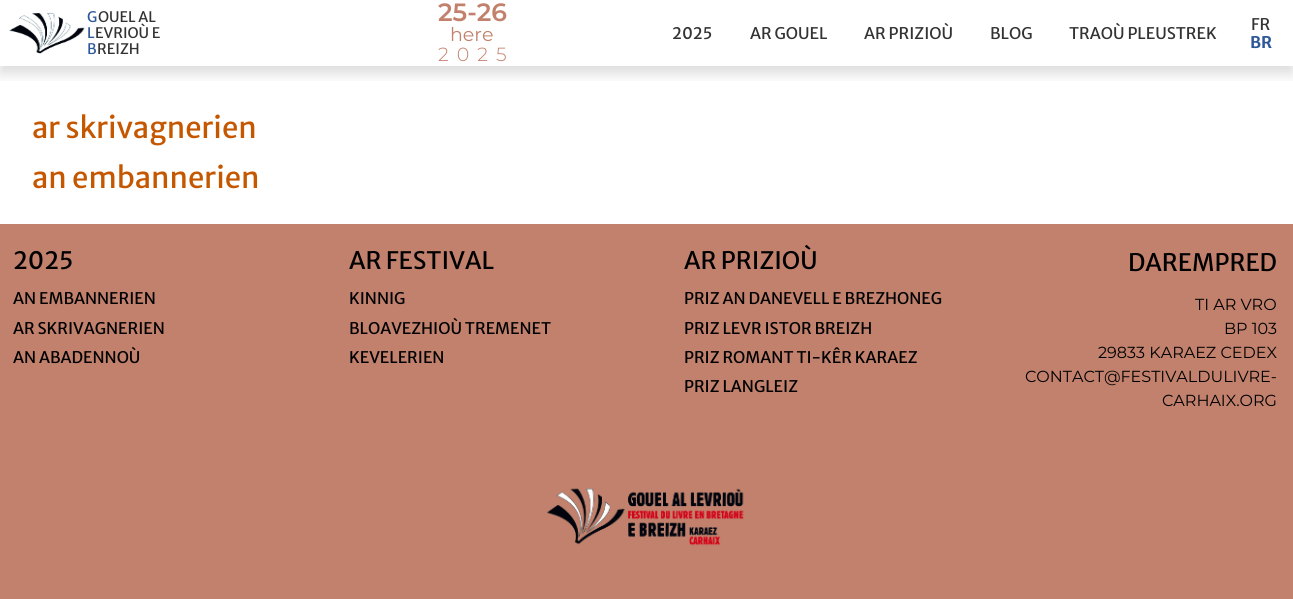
#include <cairo.h>
#include <math.h>
#include <stddef.h>

static cairo_t *ctx;

static void use_color(int r, int g, int b) {
    cairo_set_source_rgb(ctx, r / 255.0, g / 255.0, b / 255.0);
}

static void spaced_text(double x, double y, const char *s, double letter, double word) {
    cairo_move_to(ctx, x, y);
    while (*s) {
        char ch[5] = {0};
        int n = 0;
        do ch[n++] = *s++; while ((*s & 0xC0) == 0x80);
        cairo_show_text(ctx, ch);
        cairo_rel_move_to(ctx, letter + word * (*ch == ' '), 0);
    }
}

static void round_rect(double x, double y, double w, double h, double r) {
    cairo_new_sub_path(ctx);
    cairo_arc(ctx, x + w - r, y + h - r, r, 0, M_PI / 2);
    cairo_arc(ctx, x + r, y + h - r, r, M_PI / 2, M_PI);
    cairo_arc(ctx, x + r, y + r, r, M_PI, 1.5 * M_PI);
    cairo_arc(ctx, x + w - r, y + r, r, 1.5 * M_PI, 2 * M_PI);
    cairo_close_path(ctx);
}

static void shadow(double x, double y, double w, double h, double r, double blur, double alpha) {
    cairo_push_group_with_content(ctx, CAIRO_CONTENT_ALPHA);
    cairo_set_operator(ctx, CAIRO_OPERATOR_SOURCE);
    for (int i = 15; i >= -15 && fmin(w, h) + blur * i / 3 > 0; i -= 2) {
        double e = blur * i / 6;
        cairo_set_source_rgba(ctx, 0, 0, 0, alpha * erfc((i - 1) / 8.5) / 2);
        round_rect(x - e, y - e, w + 2 * e, h + 2 * e, fmax(0, fmin(r + e + blur * .6, fmin(w, h) / 2 + e)));
        cairo_fill(ctx);
    }
    cairo_pattern_t *soft = cairo_pop_group(ctx);
    cairo_mask(ctx, soft);
    cairo_pattern_destroy(soft);
}

static void picture(const char *path, double x, double y, double w, double h) {
    cairo_surface_t *image = cairo_image_surface_create_from_png(path);
    cairo_save(ctx);
    cairo_set_source_surface(ctx, image, x, y);
    cairo_rectangle(ctx, x, y, w, h);
    cairo_fill(ctx);
    cairo_restore(ctx);
    cairo_surface_destroy(image);
}

int main(void) {
    cairo_surface_t *surface = cairo_image_surface_create(CAIRO_FORMAT_RGB24, 1293, 599);
    ctx = cairo_create(surface);
    cairo_font_options_t *options = cairo_font_options_create();
    cairo_font_options_set_hint_metrics(options, CAIRO_HINT_METRICS_OFF);
    cairo_font_options_set_hint_style(options, CAIRO_HINT_STYLE_NONE);
    cairo_set_font_options(ctx, options);
    cairo_set_miter_limit(ctx, 4);
    use_color(255, 255, 255);
    cairo_paint(ctx);
    cairo_save(ctx);
    cairo_rectangle(ctx, 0, 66, 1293, 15);
    cairo_clip(ctx);
    use_color(0, 0, 0);
    shadow(0, 7, 1293, 66, 0, 7.5, 0.15);
    cairo_restore(ctx);
    picture("img1.png", 9, 12, 76, 42);
    cairo_select_font_face(ctx, "Merriweather Sans", CAIRO_FONT_SLANT_NORMAL, CAIRO_FONT_WEIGHT_NORMAL);
    cairo_set_font_size(ctx, 14.5);
    use_color(45, 87, 152);
    cairo_move_to(ctx, 87, 22);
    cairo_show_text(ctx, "G");
    use_color(51, 51, 51);
    cairo_move_to(ctx, 98, 22);
    cairo_show_text(ctx, "OUEL AL");
    use_color(45, 87, 152);
    cairo_move_to(ctx, 87, 38);
    cairo_show_text(ctx, "L");
    use_color(51, 51, 51);
    cairo_move_to(ctx, 95, 38);
    cairo_show_text(ctx, "EVRIOÙ E");
    use_color(45, 87, 152);
    cairo_move_to(ctx, 87, 54);
    cairo_show_text(ctx, "B");
    use_color(51, 51, 51);
    cairo_move_to(ctx, 97, 54);
    cairo_show_text(ctx, "REIZH");
    cairo_select_font_face(ctx, "Montserrat SemiBold", CAIRO_FONT_SLANT_NORMAL, CAIRO_FONT_WEIGHT_NORMAL);
    cairo_set_font_size(ctx, 25);
    use_color(194, 129, 109);
    cairo_move_to(ctx, 438, 21);
    cairo_show_text(ctx, "25-26");
    cairo_select_font_face(ctx, "Montserrat", CAIRO_FONT_SLANT_NORMAL, CAIRO_FONT_WEIGHT_NORMAL);
    cairo_set_font_size(ctx, 19);
    cairo_move_to(ctx, 450, 41);
    cairo_show_text(ctx, "here");
    cairo_select_font_face(ctx, "Montserrat Light", CAIRO_FONT_SLANT_NORMAL, CAIRO_FONT_WEIGHT_NORMAL);
    spaced_text(438, 61, "202", 8, 0);
    cairo_move_to(ctx, 496, 61);
    cairo_show_text(ctx, "5");
    cairo_select_font_face(ctx, "Merriweather Sans", CAIRO_FONT_SLANT_NORMAL, CAIRO_FONT_WEIGHT_NORMAL);
    cairo_set_font_size(ctx, 16);
    use_color(51, 51, 51);
    cairo_move_to(ctx, 672, 39);
    cairo_show_text(ctx, "2025");
    cairo_move_to(ctx, 750, 39);
    cairo_show_text(ctx, "AR GOUEL");
    cairo_move_to(ctx, 864, 39);
    cairo_show_text(ctx, "AR PRIZIOÙ");
    cairo_move_to(ctx, 990, 39);
    cairo_show_text(ctx, "BLOG");
    cairo_move_to(ctx, 1069, 39);
    cairo_show_text(ctx, "TRAOÙ PLEUSTREK");
    cairo_move_to(ctx, 1251, 30);
    cairo_show_text(ctx, "FR");
    cairo_select_font_face(ctx, "Merriweather Sans", CAIRO_FONT_SLANT_NORMAL, CAIRO_FONT_WEIGHT_BOLD);
    use_color(45, 87, 152);
    cairo_move_to(ctx, 1250, 48);
    cairo_show_text(ctx, "BR");
    cairo_select_font_face(ctx, "Merriweather Sans", CAIRO_FONT_SLANT_NORMAL, CAIRO_FONT_WEIGHT_NORMAL);
    cairo_set_font_size(ctx, 29.25);
    use_color(197, 87, 0);
    cairo_move_to(ctx, 32, 138);
    cairo_show_text(ctx, "ar skrivagnerien");
    cairo_move_to(ctx, 32, 188);
    cairo_show_text(ctx, "an embannerien");
    use_color(194, 129, 109);
    cairo_rectangle(ctx, 0, 224, 1293, 375);
    cairo_fill(ctx);
    cairo_set_font_size(ctx, 24);
    use_color(0, 0, 0);
    cairo_move_to(ctx, 13, 269);
    cairo_show_text(ctx, "2025");
    cairo_set_font_size(ctx, 16);
    cairo_move_to(ctx, 13, 304);
    cairo_show_text(ctx, "AN EMBANNERIEN");
    cairo_move_to(ctx, 13, 334);
    cairo_show_text(ctx, "AR SKRIVAGNERIEN");
    cairo_move_to(ctx, 13, 363);
    cairo_show_text(ctx, "AN ABADENNOÙ");
    cairo_set_font_size(ctx, 24);
    cairo_move_to(ctx, 349, 269);
    cairo_show_text(ctx, "AR FESTIVAL");
    cairo_set_font_size(ctx, 16);
    cairo_move_to(ctx, 349, 304);
    cairo_show_text(ctx, "KINNIG");
    cairo_move_to(ctx, 349, 334);
    cairo_show_text(ctx, "BLOAVEZHIOÙ TREMENET");
    cairo_move_to(ctx, 349, 363);
    cairo_show_text(ctx, "KEVELERIEN");
    cairo_set_font_size(ctx, 24);
    cairo_move_to(ctx, 684, 269);
    cairo_show_text(ctx, "AR PRIZIOÙ");
    cairo_set_font_size(ctx, 16);
    cairo_move_to(ctx, 684, 304);
    cairo_show_text(ctx, "PRIZ AN DANEVELL E BREZHONEG");
    cairo_move_to(ctx, 684, 334);
    cairo_show_text(ctx, "PRIZ LEVR ISTOR BREIZH");
    cairo_move_to(ctx, 684, 363);
    cairo_show_text(ctx, "PRIZ ROMANT TI-KÊR KARAEZ");
    cairo_move_to(ctx, 684, 392);
    cairo_show_text(ctx, "PRIZ LANGLEIZ");
    cairo_set_font_size(ctx, 24);
    cairo_move_to(ctx, 1128, 271);
    cairo_show_text(ctx, "DAREMPRED");
    cairo_select_font_face(ctx, "Montserrat", CAIRO_FONT_SLANT_NORMAL, CAIRO_FONT_WEIGHT_NORMAL);
    cairo_set_font_size(ctx, 16);
    cairo_move_to(ctx, 1195, 310);
    cairo_show_text(ctx, "TI AR VRO");
    cairo_move_to(ctx, 1224, 334);
    cairo_show_text(ctx, "BP 103");
    cairo_move_to(ctx, 1098, 358);
    cairo_show_text(ctx, "29833 KARAEZ CEDEX");
    cairo_move_to(ctx, 1025, 382);
    cairo_show_text(ctx, "CONTACT@FESTIVALDULIVRE-");
    cairo_move_to(ctx, 1162, 406);
    cairo_show_text(ctx, "CARHAIX.ORG");
    picture("img2.png", 547, 488, 197, 58);
    cairo_surface_write_to_png(surface, "result.png");
    cairo_font_options_destroy(options);
    cairo_destroy(ctx);
    cairo_surface_destroy(surface);
    return 0;
}
